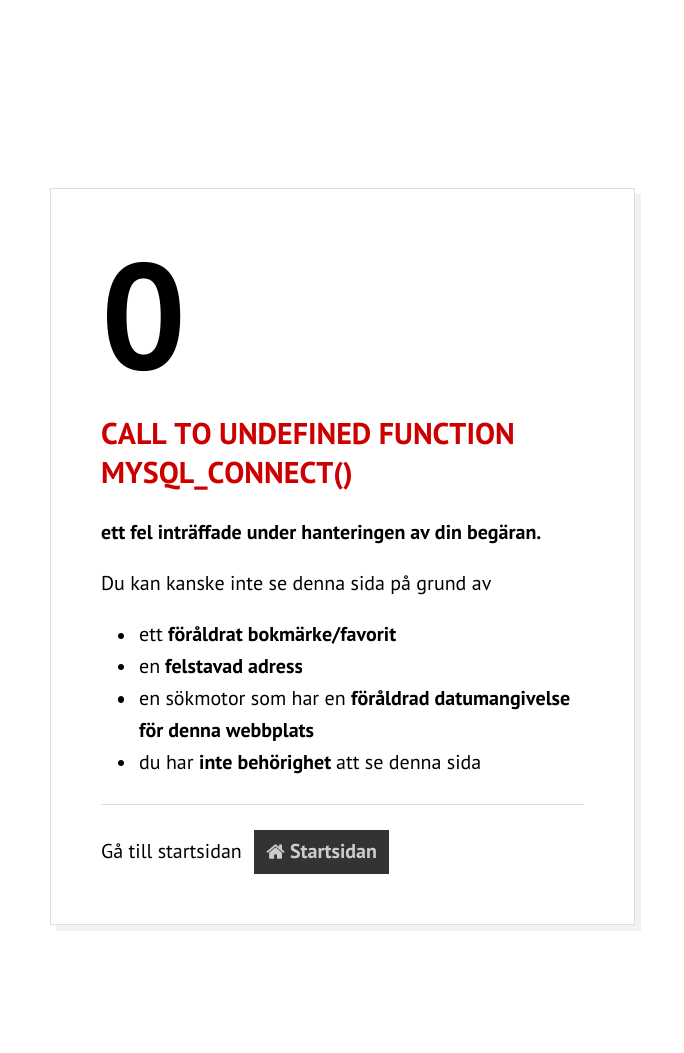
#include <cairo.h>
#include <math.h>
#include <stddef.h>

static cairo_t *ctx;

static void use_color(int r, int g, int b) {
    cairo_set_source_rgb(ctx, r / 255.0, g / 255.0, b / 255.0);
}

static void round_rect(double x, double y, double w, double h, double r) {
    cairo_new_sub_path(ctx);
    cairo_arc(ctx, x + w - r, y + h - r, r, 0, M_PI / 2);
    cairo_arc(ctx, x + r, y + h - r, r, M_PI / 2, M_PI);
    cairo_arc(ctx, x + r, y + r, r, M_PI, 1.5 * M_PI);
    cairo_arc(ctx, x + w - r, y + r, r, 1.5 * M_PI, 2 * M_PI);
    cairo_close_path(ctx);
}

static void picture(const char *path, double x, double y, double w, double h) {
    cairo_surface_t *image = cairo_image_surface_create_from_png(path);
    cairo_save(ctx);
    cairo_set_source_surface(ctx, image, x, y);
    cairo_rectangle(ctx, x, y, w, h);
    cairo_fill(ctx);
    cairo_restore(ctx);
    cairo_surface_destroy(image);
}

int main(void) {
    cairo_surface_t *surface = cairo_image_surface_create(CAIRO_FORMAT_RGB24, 684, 1053);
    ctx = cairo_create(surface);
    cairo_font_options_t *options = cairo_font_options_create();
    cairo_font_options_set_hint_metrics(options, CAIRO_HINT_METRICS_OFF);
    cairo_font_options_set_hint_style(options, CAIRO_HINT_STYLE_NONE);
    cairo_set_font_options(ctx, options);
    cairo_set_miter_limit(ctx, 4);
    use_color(255, 255, 255);
    cairo_paint(ctx);
    use_color(242, 242, 242);
    cairo_new_path(ctx);
    cairo_move_to(ctx, 56, 925);
    cairo_line_to(ctx, 56, 931);
    cairo_line_to(ctx, 641, 931);
    cairo_line_to(ctx, 641, 194);
    cairo_line_to(ctx, 635, 194);
    cairo_line_to(ctx, 635, 925);
    cairo_close_path(ctx);
    cairo_fill(ctx);
    cairo_rectangle(ctx, 50.5, 188.5, 584, 736);
    use_color(221, 221, 221);
    cairo_set_line_width(ctx, 1);
    cairo_stroke(ctx);
    cairo_select_font_face(ctx, "PT Sans", CAIRO_FONT_SLANT_NORMAL, CAIRO_FONT_WEIGHT_BOLD);
    cairo_set_font_size(ctx, 150);
    use_color(0, 0, 0);
    cairo_move_to(ctx, 101, 369);
    cairo_show_text(ctx, "0");
    cairo_set_font_size(ctx, 30);
    use_color(204, 0, 0);
    cairo_move_to(ctx, 101, 444);
    cairo_show_text(ctx, "CALL TO UNDEFINED FUNCTION");
    cairo_move_to(ctx, 101, 483);
    cairo_show_text(ctx, "MYSQL_CONNECT()");
    cairo_set_font_size(ctx, 20);
    use_color(0, 0, 0);
    cairo_move_to(ctx, 101, 539);
    cairo_show_text(ctx, "ett fel inträffade under hanteringen av din begäran.");
    cairo_select_font_face(ctx, "PT Sans", CAIRO_FONT_SLANT_NORMAL, CAIRO_FONT_WEIGHT_NORMAL);
    cairo_move_to(ctx, 101, 590);
    cairo_show_text(ctx, "Du kan kanske inte se denna sida på grund av");
    cairo_new_path(ctx);
    cairo_arc(ctx, 121, 636, 3, 0, 2 * M_PI);
    cairo_fill(ctx);
    cairo_move_to(ctx, 139, 641);
    cairo_show_text(ctx, "ett");
    cairo_select_font_face(ctx, "PT Sans", CAIRO_FONT_SLANT_NORMAL, CAIRO_FONT_WEIGHT_BOLD);
    cairo_move_to(ctx, 168, 641);
    cairo_show_text(ctx, "föråldrat bokmärke/favorit");
    cairo_new_path(ctx);
    cairo_arc(ctx, 121, 667, 3, 0, 2 * M_PI);
    cairo_fill(ctx);
    cairo_select_font_face(ctx, "PT Sans", CAIRO_FONT_SLANT_NORMAL, CAIRO_FONT_WEIGHT_NORMAL);
    cairo_move_to(ctx, 139, 673);
    cairo_show_text(ctx, "en");
    cairo_select_font_face(ctx, "PT Sans", CAIRO_FONT_SLANT_NORMAL, CAIRO_FONT_WEIGHT_BOLD);
    cairo_move_to(ctx, 165, 673);
    cairo_show_text(ctx, "felstavad adress");
    round_rect(118, 696, 6, 7, 3);
    cairo_fill(ctx);
    cairo_select_font_face(ctx, "PT Sans", CAIRO_FONT_SLANT_NORMAL, CAIRO_FONT_WEIGHT_NORMAL);
    cairo_move_to(ctx, 139, 705);
    cairo_show_text(ctx, "en sökmotor som har en");
    cairo_select_font_face(ctx, "PT Sans", CAIRO_FONT_SLANT_NORMAL, CAIRO_FONT_WEIGHT_BOLD);
    cairo_move_to(ctx, 351, 705);
    cairo_show_text(ctx, "föråldrad datumangivelse");
    cairo_move_to(ctx, 139, 737);
    cairo_show_text(ctx, "för denna webbplats");
    cairo_new_path(ctx);
    cairo_arc(ctx, 121, 763, 3, 0, 2 * M_PI);
    cairo_fill(ctx);
    cairo_select_font_face(ctx, "PT Sans", CAIRO_FONT_SLANT_NORMAL, CAIRO_FONT_WEIGHT_NORMAL);
    cairo_move_to(ctx, 139, 769);
    cairo_show_text(ctx, "du har");
    cairo_select_font_face(ctx, "PT Sans", CAIRO_FONT_SLANT_NORMAL, CAIRO_FONT_WEIGHT_BOLD);
    cairo_move_to(ctx, 199, 769);
    cairo_show_text(ctx, "inte behörighet");
    cairo_select_font_face(ctx, "PT Sans", CAIRO_FONT_SLANT_NORMAL, CAIRO_FONT_WEIGHT_NORMAL);
    cairo_move_to(ctx, 336, 769);
    cairo_show_text(ctx, "att se denna sida");
    use_color(221, 221, 221);
    cairo_rectangle(ctx, 101, 804, 483, 1);
    cairo_fill(ctx);
    use_color(0, 0, 0);
    cairo_move_to(ctx, 101, 858);
    cairo_show_text(ctx, "Gå till startsidan");
    use_color(51, 51, 51);
    cairo_rectangle(ctx, 254, 830, 135, 44);
    cairo_fill(ctx);
    picture("img1.png", 266, 844, 19, 15);
    cairo_select_font_face(ctx, "PT Sans", CAIRO_FONT_SLANT_NORMAL, CAIRO_FONT_WEIGHT_BOLD);
    use_color(204, 204, 204);
    cairo_move_to(ctx, 290, 858);
    cairo_show_text(ctx, "Startsidan");
    cairo_surface_write_to_png(surface, "result.png");
    cairo_font_options_destroy(options);
    cairo_destroy(ctx);
    cairo_surface_destroy(surface);
    return 0;
}
